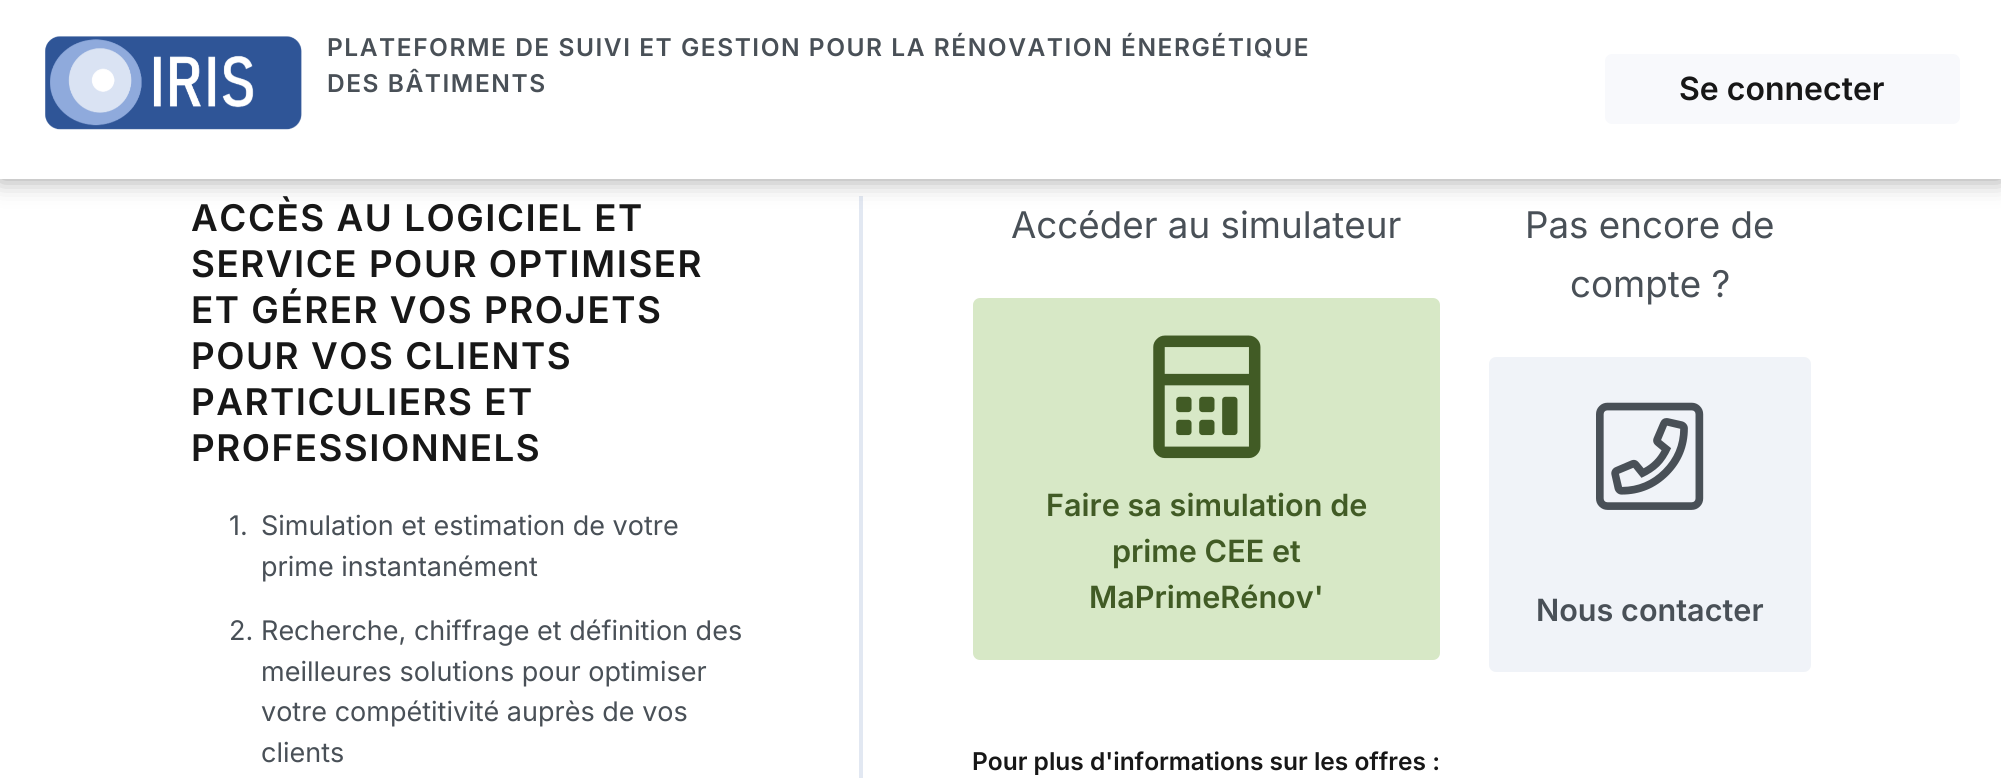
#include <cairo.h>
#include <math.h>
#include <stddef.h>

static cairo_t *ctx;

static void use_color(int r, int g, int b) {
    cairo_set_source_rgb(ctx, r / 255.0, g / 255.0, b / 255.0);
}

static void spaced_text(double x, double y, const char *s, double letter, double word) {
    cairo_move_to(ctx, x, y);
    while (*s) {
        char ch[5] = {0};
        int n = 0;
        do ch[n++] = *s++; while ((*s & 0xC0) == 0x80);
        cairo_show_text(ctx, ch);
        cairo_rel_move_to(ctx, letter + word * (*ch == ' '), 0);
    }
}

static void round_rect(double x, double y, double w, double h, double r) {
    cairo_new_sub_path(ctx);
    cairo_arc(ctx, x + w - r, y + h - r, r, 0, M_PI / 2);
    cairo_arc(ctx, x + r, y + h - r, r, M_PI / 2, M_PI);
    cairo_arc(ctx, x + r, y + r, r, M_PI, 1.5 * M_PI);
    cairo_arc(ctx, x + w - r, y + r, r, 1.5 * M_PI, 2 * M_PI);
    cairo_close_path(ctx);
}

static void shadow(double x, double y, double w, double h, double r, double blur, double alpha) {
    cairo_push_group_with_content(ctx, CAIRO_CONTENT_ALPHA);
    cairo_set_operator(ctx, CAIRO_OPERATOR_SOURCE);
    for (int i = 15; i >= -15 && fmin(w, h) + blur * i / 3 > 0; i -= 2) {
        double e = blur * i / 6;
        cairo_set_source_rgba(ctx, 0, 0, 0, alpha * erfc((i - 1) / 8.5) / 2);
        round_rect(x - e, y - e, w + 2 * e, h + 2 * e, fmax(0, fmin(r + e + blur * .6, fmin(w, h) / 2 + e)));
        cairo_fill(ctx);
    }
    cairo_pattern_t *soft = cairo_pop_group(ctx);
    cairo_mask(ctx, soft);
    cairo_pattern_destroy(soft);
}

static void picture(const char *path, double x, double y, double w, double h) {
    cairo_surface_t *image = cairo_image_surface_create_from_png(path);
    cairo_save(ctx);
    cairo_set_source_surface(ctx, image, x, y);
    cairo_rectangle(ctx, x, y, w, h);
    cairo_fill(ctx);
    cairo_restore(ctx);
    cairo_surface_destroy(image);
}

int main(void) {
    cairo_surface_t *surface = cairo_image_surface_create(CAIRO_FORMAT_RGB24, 2001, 778);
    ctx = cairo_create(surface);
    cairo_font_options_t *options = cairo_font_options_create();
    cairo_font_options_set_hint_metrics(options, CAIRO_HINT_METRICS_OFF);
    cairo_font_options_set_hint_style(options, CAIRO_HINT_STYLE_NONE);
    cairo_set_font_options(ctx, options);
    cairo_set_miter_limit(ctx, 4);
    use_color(255, 255, 255);
    cairo_paint(ctx);
    use_color(226, 232, 242);
    cairo_rectangle(ctx, 859, 196, 4, 582);
    cairo_fill(ctx);
    use_color(154, 154, 154);
    shadow(0, 0, 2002, 179, 0, 12, 1);
    use_color(255, 255, 255);
    cairo_rectangle(ctx, 0, 0, 2001, 179);
    cairo_fill(ctx);
    picture("img1.png", 45, 36, 257, 94);
    cairo_select_font_face(ctx, "Inter SemiBold", CAIRO_FONT_SLANT_NORMAL, CAIRO_FONT_WEIGHT_NORMAL);
    cairo_set_font_size(ctx, 24.5);
    use_color(73, 80, 87);
    spaced_text(327, 56, "PLATEFORME DE SUIVI ET GESTION POUR LA RÉNOVATION ÉNERGÉTIQUE", 1.53, 0);
    spaced_text(327, 92, "DES BÂTIMENTS", 1.53, 0);
    use_color(248, 249, 252);
    round_rect(1605, 54, 355, 70, 7);
    cairo_fill(ctx);
    cairo_set_font_size(ctx, 32);
    use_color(23, 23, 23);
    cairo_move_to(ctx, 1679, 100);
    cairo_show_text(ctx, "Se connecter");
    cairo_set_font_size(ctx, 36.75);
    spaced_text(191, 231, "ACCÈS AU LOGICIEL ET", 1.53, 0);
    spaced_text(191, 277, "SERVICE POUR OPTIMISER", 1.53, 0);
    spaced_text(191, 323, "ET GÉRER VOS PROJETS", 1.53, 0);
    spaced_text(191, 369, "POUR VOS CLIENTS", 1.53, 0);
    spaced_text(191, 415, "PARTICULIERS ET", 1.53, 0);
    spaced_text(191, 461, "PROFESSIONNELS", 1.53, 0);
    cairo_select_font_face(ctx, "Inter", CAIRO_FONT_SLANT_NORMAL, CAIRO_FONT_WEIGHT_NORMAL);
    cairo_set_font_size(ctx, 27);
    use_color(73, 80, 87);
    cairo_move_to(ctx, 229, 535);
    cairo_show_text(ctx, "1.");
    cairo_move_to(ctx, 261, 535);
    cairo_show_text(ctx, "Simulation et estimation de votre");
    cairo_move_to(ctx, 261, 576);
    cairo_show_text(ctx, "prime instantanément");
    cairo_move_to(ctx, 229, 640);
    cairo_show_text(ctx, "2.");
    cairo_move_to(ctx, 261, 640);
    cairo_show_text(ctx, "Recherche, chiffrage et définition des");
    cairo_move_to(ctx, 261, 681);
    cairo_show_text(ctx, "meilleures solutions pour optimiser");
    cairo_move_to(ctx, 261, 721);
    cairo_show_text(ctx, "votre compétitivité auprès de vos");
    cairo_move_to(ctx, 261, 762);
    cairo_show_text(ctx, "clients");
    cairo_set_font_size(ctx, 36.75);
    cairo_move_to(ctx, 1011, 238);
    cairo_show_text(ctx, "Accéder au simulateur");
    use_color(215, 232, 198);
    round_rect(974, 299, 465, 360, 6);
    cairo_fill_preserve(ctx);
    cairo_stroke(ctx);
    picture("img2.png", 1153, 335, 108, 124);
    cairo_select_font_face(ctx, "Inter SemiBold", CAIRO_FONT_SLANT_NORMAL, CAIRO_FONT_WEIGHT_NORMAL);
    cairo_set_font_size(ctx, 30.6);
    use_color(65, 91, 37);
    cairo_move_to(ctx, 1046, 516);
    cairo_show_text(ctx, "Faire sa simulation de");
    cairo_move_to(ctx, 1112, 562);
    cairo_show_text(ctx, "prime CEE et");
    cairo_move_to(ctx, 1089, 608);
    cairo_show_text(ctx, "MaPrimeRénov'");
    cairo_select_font_face(ctx, "Inter", CAIRO_FONT_SLANT_NORMAL, CAIRO_FONT_WEIGHT_NORMAL);
    cairo_set_font_size(ctx, 36.75);
    use_color(73, 80, 87);
    cairo_move_to(ctx, 1525, 238);
    cairo_show_text(ctx, "Pas encore de");
    cairo_move_to(ctx, 1570, 297);
    cairo_show_text(ctx, "compte ?");
    use_color(240, 243, 248);
    round_rect(1490, 358, 320, 313, 6);
    cairo_fill_preserve(ctx);
    cairo_stroke(ctx);
    picture("img3.png", 1596, 402, 108, 108);
    cairo_select_font_face(ctx, "Inter SemiBold", CAIRO_FONT_SLANT_NORMAL, CAIRO_FONT_WEIGHT_NORMAL);
    cairo_set_font_size(ctx, 30.6);
    use_color(73, 80, 87);
    cairo_move_to(ctx, 1536, 621);
    cairo_show_text(ctx, "Nous contacter");
    cairo_set_font_size(ctx, 24.5);
    use_color(23, 23, 23);
    cairo_move_to(ctx, 972, 770);
    cairo_show_text(ctx, "Pour plus d'informations sur les offres :");
    cairo_surface_write_to_png(surface, "result.png");
    cairo_font_options_destroy(options);
    cairo_destroy(ctx);
    cairo_surface_destroy(surface);
    return 0;
}
